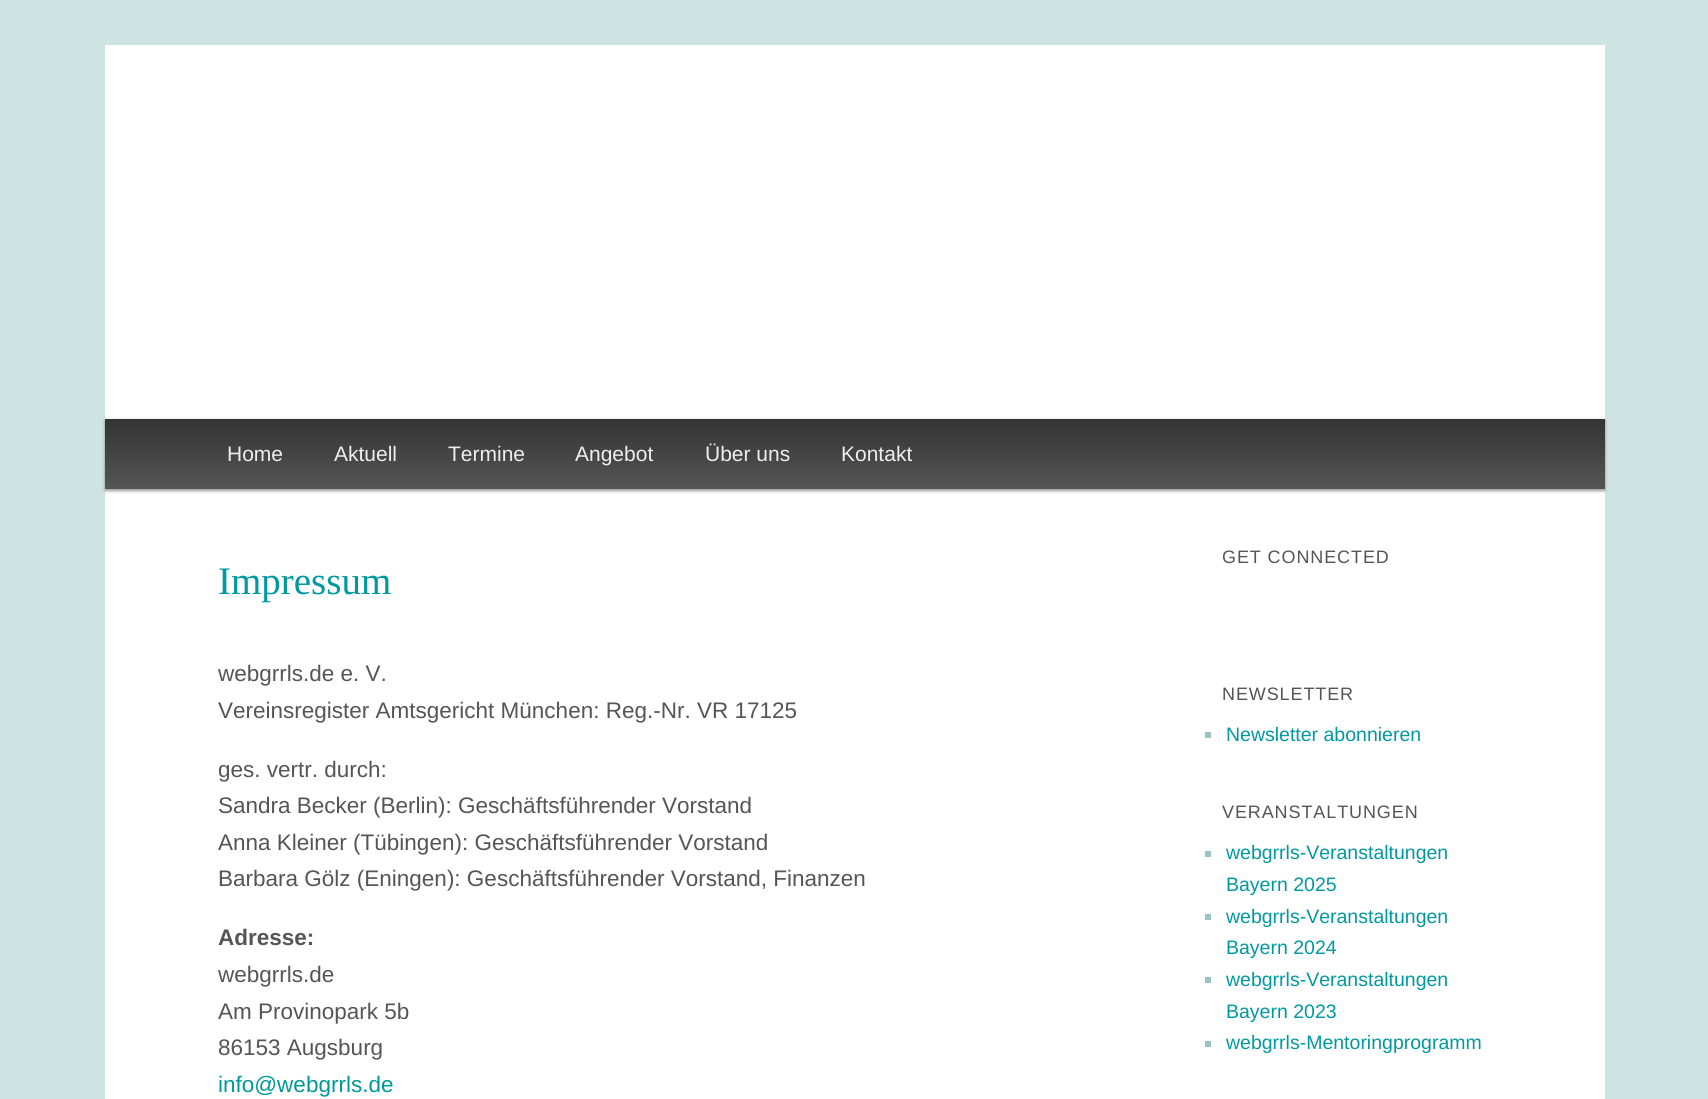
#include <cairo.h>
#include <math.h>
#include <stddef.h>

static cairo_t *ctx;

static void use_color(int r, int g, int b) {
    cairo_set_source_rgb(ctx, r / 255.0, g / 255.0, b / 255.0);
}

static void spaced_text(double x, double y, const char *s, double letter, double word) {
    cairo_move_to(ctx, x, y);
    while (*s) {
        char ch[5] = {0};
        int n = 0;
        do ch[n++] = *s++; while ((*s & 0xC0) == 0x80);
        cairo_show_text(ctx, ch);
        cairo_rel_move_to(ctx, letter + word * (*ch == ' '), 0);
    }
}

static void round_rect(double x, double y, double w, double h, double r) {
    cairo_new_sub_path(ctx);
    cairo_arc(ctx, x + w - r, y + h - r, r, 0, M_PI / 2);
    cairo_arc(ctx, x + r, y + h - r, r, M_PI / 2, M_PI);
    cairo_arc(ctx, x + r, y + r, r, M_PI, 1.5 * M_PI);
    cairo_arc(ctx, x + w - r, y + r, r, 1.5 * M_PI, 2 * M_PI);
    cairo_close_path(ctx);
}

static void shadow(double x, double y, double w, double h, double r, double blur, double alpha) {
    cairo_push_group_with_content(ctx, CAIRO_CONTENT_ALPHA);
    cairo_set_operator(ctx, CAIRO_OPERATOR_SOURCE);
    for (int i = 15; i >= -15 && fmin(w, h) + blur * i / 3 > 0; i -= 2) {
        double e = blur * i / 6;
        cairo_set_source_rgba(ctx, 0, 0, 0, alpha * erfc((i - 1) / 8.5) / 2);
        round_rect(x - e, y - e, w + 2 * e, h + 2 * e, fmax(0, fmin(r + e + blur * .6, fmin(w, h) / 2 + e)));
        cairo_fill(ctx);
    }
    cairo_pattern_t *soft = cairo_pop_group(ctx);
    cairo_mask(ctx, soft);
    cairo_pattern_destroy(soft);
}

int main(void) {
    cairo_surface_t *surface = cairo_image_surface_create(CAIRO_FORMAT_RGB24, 1708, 1099);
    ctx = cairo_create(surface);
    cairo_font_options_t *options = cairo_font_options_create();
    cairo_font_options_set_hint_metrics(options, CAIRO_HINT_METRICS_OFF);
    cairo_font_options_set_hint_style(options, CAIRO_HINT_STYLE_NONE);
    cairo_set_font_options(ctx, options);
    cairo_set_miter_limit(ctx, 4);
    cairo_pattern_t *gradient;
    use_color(206, 228, 226);
    cairo_paint(ctx);
    use_color(255, 255, 255);
    cairo_rectangle(ctx, 105, 45, 1500, 1054);
    cairo_fill(ctx);
    use_color(0, 0, 0);
    shadow(105, 420, 1500, 71, 0, 1.5, 0.4);
    gradient = cairo_pattern_create_linear(855, 418, 855, 489);
    cairo_pattern_add_color_stop_rgba(gradient, 0, 0.2, 0.2, 0.2, 1);
    cairo_pattern_add_color_stop_rgba(gradient, 1, 0.333, 0.333, 0.333, 1);
    cairo_set_source(ctx, gradient);
    cairo_pattern_destroy(gradient);
    cairo_rectangle(ctx, 105, 419, 1500, 70);
    cairo_fill(ctx);
    cairo_select_font_face(ctx, "Liberation Sans", CAIRO_FONT_SLANT_NORMAL, CAIRO_FONT_WEIGHT_NORMAL);
    cairo_set_font_size(ctx, 21);
    use_color(238, 238, 238);
    cairo_move_to(ctx, 227, 461);
    cairo_show_text(ctx, "Home");
    cairo_move_to(ctx, 334, 461);
    cairo_show_text(ctx, "Aktuell");
    cairo_move_to(ctx, 448, 461);
    cairo_show_text(ctx, "Termine");
    cairo_move_to(ctx, 575, 461);
    cairo_show_text(ctx, "Angebot");
    cairo_move_to(ctx, 705, 461);
    cairo_show_text(ctx, "Über uns");
    cairo_move_to(ctx, 841, 461);
    cairo_show_text(ctx, "Kontakt");
    cairo_select_font_face(ctx, "Liberation Serif", CAIRO_FONT_SLANT_NORMAL, CAIRO_FONT_WEIGHT_NORMAL);
    cairo_set_font_size(ctx, 39);
    use_color(0, 153, 161);
    cairo_move_to(ctx, 218, 594);
    cairo_show_text(ctx, "Impressum");
    cairo_select_font_face(ctx, "Liberation Sans", CAIRO_FONT_SLANT_NORMAL, CAIRO_FONT_WEIGHT_NORMAL);
    cairo_set_font_size(ctx, 22.5);
    use_color(85, 85, 85);
    cairo_move_to(ctx, 218, 681);
    cairo_show_text(ctx, "webgrrls.de e. V.");
    cairo_move_to(ctx, 218, 718);
    cairo_show_text(ctx, "Vereinsregister Amtsgericht München: Reg.-Nr. VR 17125");
    cairo_move_to(ctx, 218, 777);
    cairo_show_text(ctx, "ges. vertr. durch:");
    cairo_move_to(ctx, 218, 813);
    cairo_show_text(ctx, "Sandra Becker (Berlin): Geschäftsführender Vorstand");
    cairo_move_to(ctx, 218, 850);
    cairo_show_text(ctx, "Anna Kleiner (Tübingen): Geschäftsführender Vorstand");
    cairo_move_to(ctx, 218, 886);
    cairo_show_text(ctx, "Barbara Gölz (Eningen): Geschäftsführender Vorstand, Finanzen");
    cairo_select_font_face(ctx, "Liberation Sans", CAIRO_FONT_SLANT_NORMAL, CAIRO_FONT_WEIGHT_BOLD);
    cairo_move_to(ctx, 218, 945);
    cairo_show_text(ctx, "Adresse:");
    cairo_select_font_face(ctx, "Liberation Sans", CAIRO_FONT_SLANT_NORMAL, CAIRO_FONT_WEIGHT_NORMAL);
    cairo_move_to(ctx, 218, 982);
    cairo_show_text(ctx, "webgrrls.de");
    cairo_move_to(ctx, 218, 1019);
    cairo_show_text(ctx, "Am Provinopark 5b");
    cairo_move_to(ctx, 218, 1055);
    cairo_show_text(ctx, "86153 Augsburg");
    use_color(0, 153, 153);
    cairo_move_to(ctx, 218, 1092);
    cairo_show_text(ctx, "info@webgrrls.de");
    cairo_set_font_size(ctx, 18);
    use_color(85, 85, 85);
    spaced_text(1222, 563, "GET CONNECTED", 0.9, 0);
    spaced_text(1222, 700, "NEWSLETTER", 0.9, 0);
    use_color(154, 196, 195);
    cairo_rectangle(ctx, 1205, 732, 6, 6);
    cairo_fill(ctx);
    cairo_set_font_size(ctx, 19.5);
    use_color(0, 153, 161);
    cairo_move_to(ctx, 1226, 741);
    cairo_show_text(ctx, "Newsletter abonnieren");
    cairo_set_font_size(ctx, 18);
    use_color(85, 85, 85);
    spaced_text(1222, 818, "VERANSTALTUNGEN", 0.9, 0);
    use_color(154, 196, 195);
    cairo_rectangle(ctx, 1205, 851, 6, 6);
    cairo_fill(ctx);
    cairo_set_font_size(ctx, 19.5);
    use_color(0, 153, 161);
    cairo_move_to(ctx, 1226, 859);
    cairo_show_text(ctx, "webgrrls-Veranstaltungen");
    cairo_move_to(ctx, 1226, 891);
    cairo_show_text(ctx, "Bayern 2025");
    use_color(154, 196, 195);
    cairo_rectangle(ctx, 1205, 914, 6, 6);
    cairo_fill(ctx);
    use_color(0, 153, 161);
    cairo_move_to(ctx, 1226, 923);
    cairo_show_text(ctx, "webgrrls-Veranstaltungen");
    cairo_move_to(ctx, 1226, 954);
    cairo_show_text(ctx, "Bayern 2024");
    use_color(154, 196, 195);
    cairo_rectangle(ctx, 1205, 977, 6, 6);
    cairo_fill(ctx);
    use_color(0, 153, 161);
    cairo_move_to(ctx, 1226, 986);
    cairo_show_text(ctx, "webgrrls-Veranstaltungen");
    cairo_move_to(ctx, 1226, 1018);
    cairo_show_text(ctx, "Bayern 2023");
    use_color(154, 196, 195);
    cairo_rectangle(ctx, 1205, 1041, 6, 6);
    cairo_fill(ctx);
    use_color(0, 153, 161);
    cairo_move_to(ctx, 1226, 1049);
    cairo_show_text(ctx, "webgrrls-Mentoringprogramm");
    cairo_surface_write_to_png(surface, "result.png");
    cairo_font_options_destroy(options);
    cairo_destroy(ctx);
    cairo_surface_destroy(surface);
    return 0;
}
